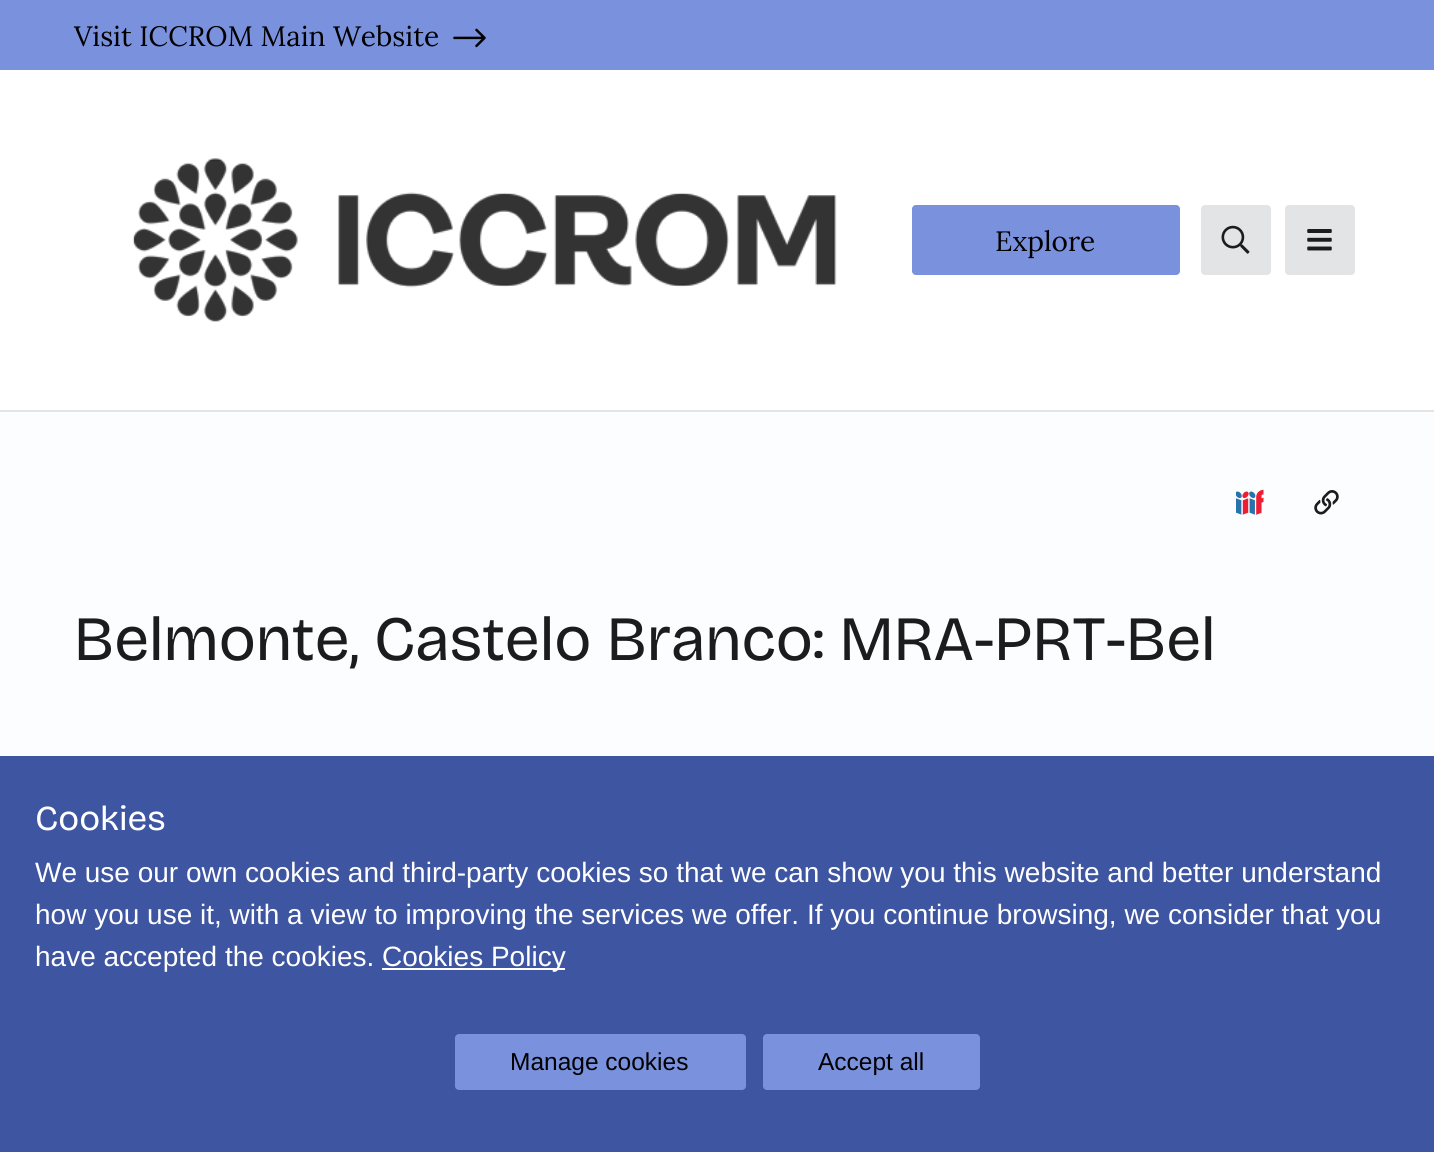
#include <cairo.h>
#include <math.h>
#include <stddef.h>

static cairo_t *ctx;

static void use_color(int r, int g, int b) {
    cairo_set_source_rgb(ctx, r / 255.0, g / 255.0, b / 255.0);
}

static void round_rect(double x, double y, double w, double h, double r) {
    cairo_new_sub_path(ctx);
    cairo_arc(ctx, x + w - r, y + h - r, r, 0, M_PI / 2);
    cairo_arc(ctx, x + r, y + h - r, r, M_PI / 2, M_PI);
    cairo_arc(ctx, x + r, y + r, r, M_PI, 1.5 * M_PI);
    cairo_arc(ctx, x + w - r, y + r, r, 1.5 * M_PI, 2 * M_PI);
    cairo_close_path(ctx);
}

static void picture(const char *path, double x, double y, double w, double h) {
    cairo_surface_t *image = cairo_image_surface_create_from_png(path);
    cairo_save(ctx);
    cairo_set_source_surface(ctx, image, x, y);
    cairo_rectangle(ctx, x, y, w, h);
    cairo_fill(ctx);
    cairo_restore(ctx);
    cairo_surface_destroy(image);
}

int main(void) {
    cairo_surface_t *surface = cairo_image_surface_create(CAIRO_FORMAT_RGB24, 1434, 1152);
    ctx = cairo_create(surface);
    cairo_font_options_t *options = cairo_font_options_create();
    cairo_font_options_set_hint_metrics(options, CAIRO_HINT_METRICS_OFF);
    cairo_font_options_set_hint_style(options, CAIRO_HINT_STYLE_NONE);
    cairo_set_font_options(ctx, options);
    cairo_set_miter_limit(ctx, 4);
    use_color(252, 253, 254);
    cairo_paint(ctx);
    use_color(122, 145, 221);
    cairo_rectangle(ctx, 0, 0, 1434, 70);
    cairo_fill(ctx);
    cairo_select_font_face(ctx, "Lora", CAIRO_FONT_SLANT_NORMAL, CAIRO_FONT_WEIGHT_NORMAL);
    cairo_set_font_size(ctx, 28);
    use_color(0, 0, 0);
    cairo_move_to(ctx, 74, 46);
    cairo_show_text(ctx, "Visit ICCROM Main Website");
    picture("img1.png", 453, 28, 33, 20);
    use_color(255, 255, 255);
    cairo_rectangle(ctx, 0, 70, 1434, 340);
    cairo_fill(ctx);
    use_color(227, 228, 229);
    cairo_rectangle(ctx, 0, 410, 1434, 2);
    cairo_fill(ctx);
    picture("img2.png", 132, 158, 705, 164);
    use_color(122, 145, 221);
    round_rect(912, 205, 268, 70, 4);
    cairo_fill(ctx);
    use_color(0, 0, 0);
    cairo_move_to(ctx, 995, 251);
    cairo_show_text(ctx, "Explore");
    use_color(227, 228, 229);
    round_rect(1201, 205, 70, 70, 4);
    cairo_fill(ctx);
    picture("img3.png", 1221, 225, 29, 29);
    round_rect(1285, 205, 70, 70, 4);
    cairo_fill(ctx);
    picture("img4.png", 1307, 229, 25, 22);
    picture("img5.png", 1236, 489, 28, 26);
    picture("img6.png", 1314, 490, 25, 25);
    cairo_select_font_face(ctx, "Bricolage Grotesque", CAIRO_FONT_SLANT_NORMAL, CAIRO_FONT_WEIGHT_NORMAL);
    cairo_set_font_size(ctx, 63);
    use_color(27, 28, 29);
    cairo_move_to(ctx, 74, 660);
    cairo_show_text(ctx, "Belmonte, Castelo Branco: MRA-PRT-Bel");
    use_color(62, 85, 161);
    cairo_rectangle(ctx, 0, 756, 1434, 396);
    cairo_fill(ctx);
    cairo_select_font_face(ctx, "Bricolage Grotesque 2", CAIRO_FONT_SLANT_NORMAL, CAIRO_FONT_WEIGHT_NORMAL);
    cairo_set_font_size(ctx, 35);
    use_color(255, 255, 255);
    cairo_move_to(ctx, 35, 830);
    cairo_show_text(ctx, "Cookies");
    cairo_select_font_face(ctx, "Liberation Sans", CAIRO_FONT_SLANT_NORMAL, CAIRO_FONT_WEIGHT_NORMAL);
    cairo_set_font_size(ctx, 28);
    cairo_move_to(ctx, 35, 882);
    cairo_show_text(ctx, "We use our own cookies and third-party cookies so that we can show you this website and better understand");
    cairo_move_to(ctx, 35, 924);
    cairo_show_text(ctx, "how you use it, with a view to improving the services we offer. If you continue browsing, we consider that you");
    cairo_move_to(ctx, 35, 966);
    cairo_show_text(ctx, "have accepted the cookies.");
    cairo_rectangle(ctx, 382, 968, 183, 2);
    cairo_fill(ctx);
    cairo_move_to(ctx, 382, 966);
    cairo_show_text(ctx, "Cookies Policy");
    use_color(122, 145, 221);
    round_rect(455, 1034, 291, 56, 4);
    cairo_fill(ctx);
    cairo_set_font_size(ctx, 24.5);
    use_color(0, 0, 0);
    cairo_move_to(ctx, 510, 1070);
    cairo_show_text(ctx, "Manage cookies");
    use_color(122, 145, 221);
    round_rect(763, 1034, 217, 56, 4);
    cairo_fill(ctx);
    use_color(0, 0, 0);
    cairo_move_to(ctx, 818, 1070);
    cairo_show_text(ctx, "Accept all");
    cairo_surface_write_to_png(surface, "result.png");
    cairo_font_options_destroy(options);
    cairo_destroy(ctx);
    cairo_surface_destroy(surface);
    return 0;
}
